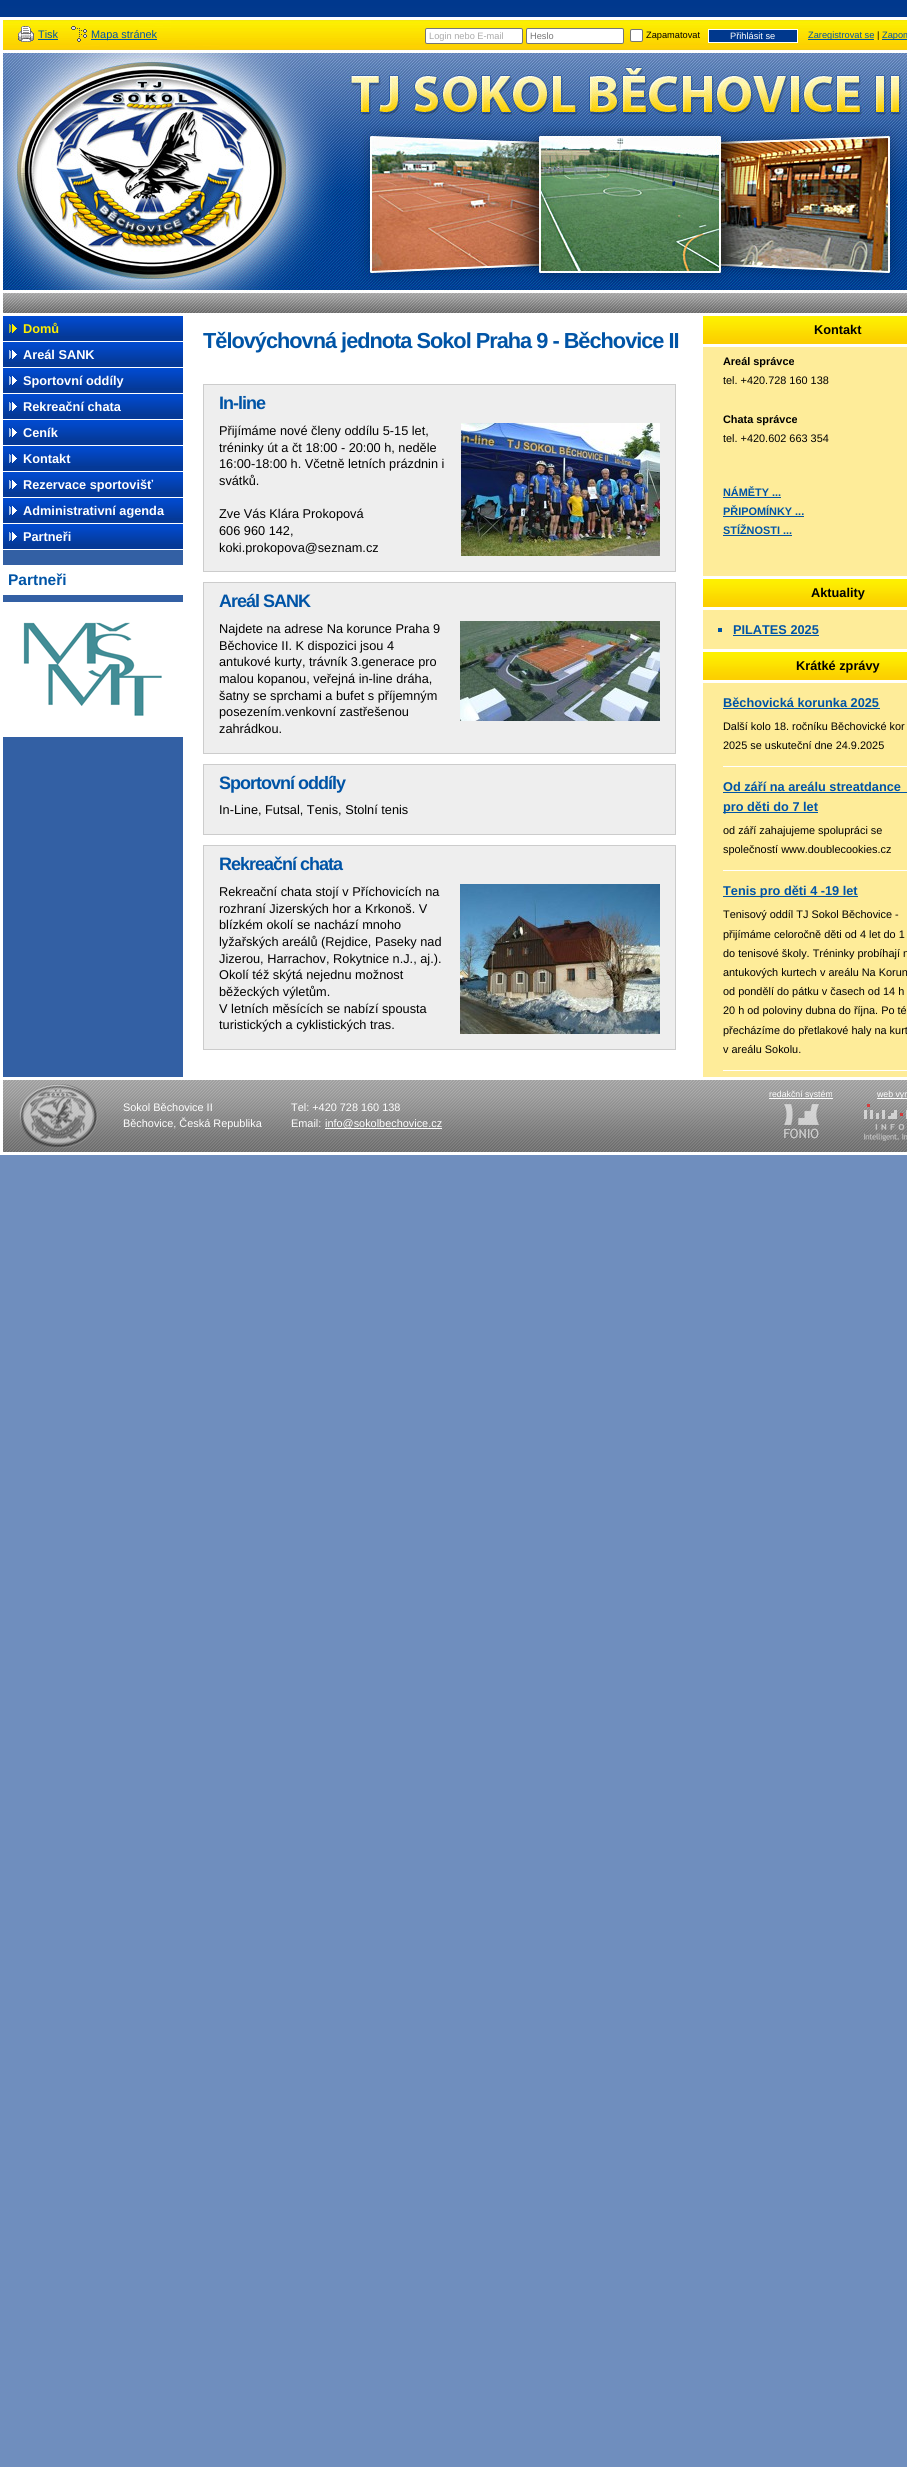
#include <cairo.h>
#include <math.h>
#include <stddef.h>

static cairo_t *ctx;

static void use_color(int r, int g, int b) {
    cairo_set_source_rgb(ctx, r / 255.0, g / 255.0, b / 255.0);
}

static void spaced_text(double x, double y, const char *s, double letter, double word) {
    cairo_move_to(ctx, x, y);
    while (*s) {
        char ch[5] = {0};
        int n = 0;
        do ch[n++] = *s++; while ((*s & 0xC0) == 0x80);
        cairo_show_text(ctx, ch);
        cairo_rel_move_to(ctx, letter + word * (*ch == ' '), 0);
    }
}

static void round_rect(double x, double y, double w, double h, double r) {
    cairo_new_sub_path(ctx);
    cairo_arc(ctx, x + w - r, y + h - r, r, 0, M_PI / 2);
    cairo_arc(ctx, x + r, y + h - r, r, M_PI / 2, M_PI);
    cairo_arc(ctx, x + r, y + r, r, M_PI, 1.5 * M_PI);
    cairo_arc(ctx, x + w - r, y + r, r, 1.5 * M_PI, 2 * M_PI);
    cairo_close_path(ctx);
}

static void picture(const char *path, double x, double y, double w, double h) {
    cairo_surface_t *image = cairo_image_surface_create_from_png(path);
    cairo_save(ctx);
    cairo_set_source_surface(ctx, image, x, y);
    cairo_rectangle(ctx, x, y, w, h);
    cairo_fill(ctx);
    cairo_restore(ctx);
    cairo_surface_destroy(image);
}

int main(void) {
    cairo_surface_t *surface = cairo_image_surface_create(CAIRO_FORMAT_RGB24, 907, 2467);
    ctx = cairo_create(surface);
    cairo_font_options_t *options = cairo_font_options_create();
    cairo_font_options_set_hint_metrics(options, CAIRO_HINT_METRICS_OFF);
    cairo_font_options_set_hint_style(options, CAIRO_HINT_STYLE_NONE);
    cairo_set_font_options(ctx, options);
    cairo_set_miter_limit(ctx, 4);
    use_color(111, 142, 190);
    cairo_paint(ctx);
    picture("img1.png", 0, 0, 907, 17);
    picture("img2.png", 3, 313, 904, 764);
    cairo_rectangle(ctx, 1.5, 18.5, 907, 1135);
    use_color(255, 255, 255);
    cairo_set_line_width(ctx, 3);
    cairo_stroke(ctx);
    picture("img3.png", 3, 20, 904, 293);
    picture("img4.png", 18, 26, 16, 16);
    cairo_select_font_face(ctx, "Liberation Sans", CAIRO_FONT_SLANT_NORMAL, CAIRO_FONT_WEIGHT_NORMAL);
    cairo_set_font_size(ctx, 10.9);
    use_color(0, 84, 166);
    cairo_move_to(ctx, 38, 38);
    cairo_show_text(ctx, "Tisk");
    cairo_rectangle(ctx, 38, 39, 20, 1);
    cairo_fill(ctx);
    picture("img5.png", 71, 26, 16, 16);
    cairo_rectangle(ctx, 91, 39, 66, 1);
    cairo_fill(ctx);
    cairo_move_to(ctx, 91, 38);
    cairo_show_text(ctx, "Mapa stránek");
    use_color(255, 255, 255);
    round_rect(425.5, 28.5, 97, 15, 1.5);
    cairo_fill_preserve(ctx);
    use_color(118, 118, 118);
    cairo_set_line_width(ctx, 1);
    cairo_stroke(ctx);
    cairo_set_font_size(ctx, 9.25);
    use_color(170, 170, 170);
    cairo_move_to(ctx, 429, 39);
    cairo_show_text(ctx, "Login nebo E-mail");
    use_color(255, 255, 255);
    round_rect(526.5, 28.5, 97, 15, 1.5);
    cairo_fill_preserve(ctx);
    use_color(118, 118, 118);
    cairo_stroke(ctx);
    use_color(117, 117, 117);
    cairo_move_to(ctx, 530, 39);
    cairo_show_text(ctx, "Heslo");
    use_color(255, 255, 255);
    round_rect(630.5, 29.5, 12, 12, 1.5);
    cairo_fill_preserve(ctx);
    use_color(118, 118, 118);
    cairo_stroke(ctx);
    use_color(0, 0, 0);
    cairo_move_to(ctx, 646, 38);
    cairo_show_text(ctx, "Zapamatovat");
    use_color(0, 56, 141);
    cairo_rectangle(ctx, 708.5, 29.5, 89, 13);
    cairo_fill_preserve(ctx);
    use_color(255, 255, 255);
    cairo_stroke(ctx);
    cairo_move_to(ctx, 730, 39);
    cairo_show_text(ctx, "Přihlásit se");
    use_color(0, 84, 166);
    cairo_rectangle(ctx, 808, 39, 66, 1);
    cairo_fill(ctx);
    cairo_move_to(ctx, 808, 38);
    cairo_show_text(ctx, "Zaregistrovat se");
    use_color(0, 0, 0);
    cairo_move_to(ctx, 877, 38);
    cairo_show_text(ctx, "|");
    use_color(0, 84, 166);
    cairo_rectangle(ctx, 882, 39, 25, 1);
    cairo_fill(ctx);
    cairo_move_to(ctx, 882, 38);
    cairo_show_text(ctx, "Zapom");
    use_color(255, 255, 255);
    cairo_rectangle(ctx, 3, 313, 180, 3);
    cairo_fill(ctx);
    use_color(5, 57, 151);
    cairo_rectangle(ctx, 3, 336, 180, 5);
    cairo_fill(ctx);
    picture("img6.png", 3, 316, 180, 20);
    use_color(255, 255, 255);
    cairo_rectangle(ctx, 3, 341, 180, 1);
    cairo_fill(ctx);
    picture("img7.png", 9, 324, 8, 9);
    cairo_select_font_face(ctx, "Liberation Sans", CAIRO_FONT_SLANT_NORMAL, CAIRO_FONT_WEIGHT_BOLD);
    cairo_set_font_size(ctx, 12.75);
    use_color(253, 238, 1);
    cairo_move_to(ctx, 23, 333);
    cairo_show_text(ctx, "Domů");
    use_color(5, 57, 151);
    cairo_rectangle(ctx, 3, 362, 180, 5);
    cairo_fill(ctx);
    picture("img6.png", 3, 342, 180, 20);
    use_color(255, 255, 255);
    cairo_rectangle(ctx, 3, 367, 180, 1);
    cairo_fill(ctx);
    picture("img8.png", 9, 350, 8, 9);
    cairo_move_to(ctx, 23, 359);
    cairo_show_text(ctx, "Areál SANK");
    use_color(5, 57, 151);
    cairo_rectangle(ctx, 3, 388, 180, 5);
    cairo_fill(ctx);
    picture("img6.png", 3, 368, 180, 20);
    use_color(255, 255, 255);
    cairo_rectangle(ctx, 3, 393, 180, 1);
    cairo_fill(ctx);
    picture("img8.png", 9, 376, 8, 9);
    cairo_move_to(ctx, 23, 385);
    cairo_show_text(ctx, "Sportovní oddíly");
    use_color(5, 57, 151);
    cairo_rectangle(ctx, 3, 414, 180, 5);
    cairo_fill(ctx);
    picture("img6.png", 3, 394, 180, 20);
    use_color(255, 255, 255);
    cairo_rectangle(ctx, 3, 419, 180, 1);
    cairo_fill(ctx);
    picture("img8.png", 9, 402, 8, 9);
    cairo_move_to(ctx, 23, 411);
    cairo_show_text(ctx, "Rekreační chata");
    use_color(5, 57, 151);
    cairo_rectangle(ctx, 3, 440, 180, 5);
    cairo_fill(ctx);
    picture("img6.png", 3, 420, 180, 20);
    use_color(255, 255, 255);
    cairo_rectangle(ctx, 3, 445, 180, 1);
    cairo_fill(ctx);
    picture("img8.png", 9, 428, 8, 9);
    cairo_move_to(ctx, 23, 437);
    cairo_show_text(ctx, "Ceník");
    use_color(5, 57, 151);
    cairo_rectangle(ctx, 3, 466, 180, 5);
    cairo_fill(ctx);
    picture("img6.png", 3, 446, 180, 20);
    use_color(255, 255, 255);
    cairo_rectangle(ctx, 3, 471, 180, 1);
    cairo_fill(ctx);
    picture("img8.png", 9, 454, 8, 9);
    cairo_move_to(ctx, 23, 463);
    cairo_show_text(ctx, "Kontakt");
    use_color(5, 57, 151);
    cairo_rectangle(ctx, 3, 492, 180, 5);
    cairo_fill(ctx);
    picture("img6.png", 3, 472, 180, 20);
    use_color(255, 255, 255);
    cairo_rectangle(ctx, 3, 497, 180, 1);
    cairo_fill(ctx);
    picture("img8.png", 9, 480, 8, 9);
    cairo_move_to(ctx, 23, 489);
    cairo_show_text(ctx, "Rezervace sportovišť");
    use_color(5, 57, 151);
    cairo_rectangle(ctx, 3, 518, 180, 5);
    cairo_fill(ctx);
    picture("img6.png", 3, 498, 180, 20);
    use_color(255, 255, 255);
    cairo_rectangle(ctx, 3, 523, 180, 1);
    cairo_fill(ctx);
    picture("img8.png", 9, 506, 8, 9);
    cairo_move_to(ctx, 23, 515);
    cairo_show_text(ctx, "Administrativní agenda");
    use_color(5, 57, 151);
    cairo_rectangle(ctx, 3, 544, 180, 5);
    cairo_fill(ctx);
    picture("img6.png", 3, 524, 180, 20);
    use_color(255, 255, 255);
    cairo_rectangle(ctx, 3, 549, 180, 1);
    cairo_fill(ctx);
    picture("img8.png", 9, 532, 8, 9);
    cairo_move_to(ctx, 23, 541);
    cairo_show_text(ctx, "Partneři");
    cairo_rectangle(ctx, 3, 565, 180, 30);
    cairo_fill(ctx);
    cairo_set_font_size(ctx, 15.5);
    use_color(0, 84, 166);
    cairo_move_to(ctx, 8, 585);
    cairo_show_text(ctx, "Partneři");
    picture("img9.png", 3, 602, 180, 135);
    cairo_set_font_size(ctx, 21.75);
    spaced_text(203, 348, "Tělovýchovná jednota Sokol Praha 9 - Běchovice II", -1, 0);
    use_color(238, 238, 238);
    cairo_rectangle(ctx, 203.5, 384.5, 472, 187);
    cairo_fill_preserve(ctx);
    use_color(204, 204, 204);
    cairo_stroke(ctx);
    cairo_set_font_size(ctx, 18);
    use_color(0, 84, 166);
    spaced_text(219, 409, "In-line", -1, 0);
    cairo_select_font_face(ctx, "Liberation Sans", CAIRO_FONT_SLANT_NORMAL, CAIRO_FONT_WEIGHT_NORMAL);
    cairo_set_font_size(ctx, 12.75);
    use_color(0, 0, 0);
    cairo_move_to(ctx, 219, 435);
    cairo_show_text(ctx, "Přijímáme nové členy oddílu 5-15 let,");
    cairo_move_to(ctx, 219, 452);
    cairo_show_text(ctx, "tréninky út a čt 18:00 - 20:00 h, neděle");
    cairo_move_to(ctx, 219, 468);
    cairo_show_text(ctx, "16:00-18:00 h. Včetně letních prázdnin i");
    cairo_move_to(ctx, 219, 485);
    cairo_show_text(ctx, "svátků.");
    cairo_move_to(ctx, 219, 518);
    cairo_show_text(ctx, "Zve Vás Klára Prokopová");
    cairo_move_to(ctx, 219, 535);
    cairo_show_text(ctx, "606 960 142,");
    cairo_move_to(ctx, 219, 552);
    cairo_show_text(ctx, "koki.prokopova@seznam.cz");
    picture("img10.png", 461, 423, 199, 133);
    use_color(238, 238, 238);
    cairo_rectangle(ctx, 203.5, 582.5, 472, 171);
    cairo_fill_preserve(ctx);
    use_color(204, 204, 204);
    cairo_stroke(ctx);
    cairo_select_font_face(ctx, "Liberation Sans", CAIRO_FONT_SLANT_NORMAL, CAIRO_FONT_WEIGHT_BOLD);
    cairo_set_font_size(ctx, 18);
    use_color(0, 84, 166);
    spaced_text(219, 607, "Areál SANK", -1, 0);
    cairo_select_font_face(ctx, "Liberation Sans", CAIRO_FONT_SLANT_NORMAL, CAIRO_FONT_WEIGHT_NORMAL);
    cairo_set_font_size(ctx, 12.75);
    use_color(0, 0, 0);
    cairo_move_to(ctx, 219, 633);
    cairo_show_text(ctx, "Najdete na adrese Na korunce Praha 9");
    cairo_move_to(ctx, 219, 650);
    cairo_show_text(ctx, "Běchovice II. K dispozici jsou 4");
    cairo_move_to(ctx, 219, 666);
    cairo_show_text(ctx, "antukové kurty, trávník 3.generace pro");
    cairo_move_to(ctx, 219, 683);
    cairo_show_text(ctx, "malou kopanou, veřejná in-line dráha,");
    cairo_move_to(ctx, 219, 700);
    cairo_show_text(ctx, "šatny se sprchami a bufet s příjemným");
    cairo_move_to(ctx, 219, 716);
    cairo_show_text(ctx, "posezením.venkovní zastřešenou");
    cairo_move_to(ctx, 219, 733);
    cairo_show_text(ctx, "zahrádkou.");
    picture("img11.png", 460, 621, 200, 100);
    use_color(238, 238, 238);
    cairo_rectangle(ctx, 203.5, 764.5, 472, 70);
    cairo_fill_preserve(ctx);
    use_color(204, 204, 204);
    cairo_stroke(ctx);
    cairo_select_font_face(ctx, "Liberation Sans", CAIRO_FONT_SLANT_NORMAL, CAIRO_FONT_WEIGHT_BOLD);
    cairo_set_font_size(ctx, 18);
    use_color(0, 84, 166);
    spaced_text(219, 789, "Sportovní oddíly", -1, 0);
    cairo_select_font_face(ctx, "Liberation Sans", CAIRO_FONT_SLANT_NORMAL, CAIRO_FONT_WEIGHT_NORMAL);
    cairo_set_font_size(ctx, 12.75);
    use_color(0, 0, 0);
    cairo_move_to(ctx, 219, 814);
    cairo_show_text(ctx, "In-Line, Futsal, Tenis, Stolní tenis");
    use_color(238, 238, 238);
    cairo_rectangle(ctx, 203.5, 845.5, 472, 204);
    cairo_fill_preserve(ctx);
    use_color(204, 204, 204);
    cairo_stroke(ctx);
    cairo_select_font_face(ctx, "Liberation Sans", CAIRO_FONT_SLANT_NORMAL, CAIRO_FONT_WEIGHT_BOLD);
    cairo_set_font_size(ctx, 18);
    use_color(0, 84, 166);
    spaced_text(219, 870, "Rekreační chata", -1, 0);
    cairo_select_font_face(ctx, "Liberation Sans", CAIRO_FONT_SLANT_NORMAL, CAIRO_FONT_WEIGHT_NORMAL);
    cairo_set_font_size(ctx, 12.75);
    use_color(0, 0, 0);
    cairo_move_to(ctx, 219, 896);
    cairo_show_text(ctx, "Rekreační chata stojí v Příchovicích na");
    cairo_move_to(ctx, 219, 913);
    cairo_show_text(ctx, "rozhraní Jizerských hor a Krkonoš. V");
    cairo_move_to(ctx, 219, 929);
    cairo_show_text(ctx, "blízkém okolí se nachází mnoho");
    cairo_move_to(ctx, 219, 946);
    cairo_show_text(ctx, "lyžařských areálů (Rejdice, Paseky nad");
    cairo_move_to(ctx, 219, 963);
    cairo_show_text(ctx, "Jizerou, Harrachov, Rokytnice n.J., aj.).");
    cairo_move_to(ctx, 219, 979);
    cairo_show_text(ctx, "Okolí též skýtá nejednu možnost");
    cairo_move_to(ctx, 219, 996);
    cairo_show_text(ctx, "běžeckých výletům.");
    cairo_move_to(ctx, 219, 1013);
    cairo_show_text(ctx, "V letních měsících se nabízí spousta");
    cairo_move_to(ctx, 219, 1029);
    cairo_show_text(ctx, "turistických a cyklistických tras.");
    picture("img12.png", 460, 884, 200, 150);
    picture("img13.png", 703, 316, 204, 29);
    use_color(255, 255, 255);
    cairo_rectangle(ctx, 703, 313, 204, 3);
    cairo_fill(ctx);
    cairo_rectangle(ctx, 703, 345, 204, 2);
    cairo_fill(ctx);
    cairo_select_font_face(ctx, "Liberation Sans", CAIRO_FONT_SLANT_NORMAL, CAIRO_FONT_WEIGHT_BOLD);
    use_color(0, 0, 0);
    cairo_move_to(ctx, 814, 334);
    cairo_show_text(ctx, "Kontakt");
    cairo_set_font_size(ctx, 10.9);
    cairo_move_to(ctx, 723, 365);
    cairo_show_text(ctx, "Areál správce");
    cairo_select_font_face(ctx, "Liberation Sans", CAIRO_FONT_SLANT_NORMAL, CAIRO_FONT_WEIGHT_NORMAL);
    cairo_move_to(ctx, 723, 384);
    cairo_show_text(ctx, "tel. +420.728 160 138");
    cairo_select_font_face(ctx, "Liberation Sans", CAIRO_FONT_SLANT_NORMAL, CAIRO_FONT_WEIGHT_BOLD);
    cairo_move_to(ctx, 723, 423);
    cairo_show_text(ctx, "Chata správce");
    cairo_select_font_face(ctx, "Liberation Sans", CAIRO_FONT_SLANT_NORMAL, CAIRO_FONT_WEIGHT_NORMAL);
    cairo_move_to(ctx, 723, 442);
    cairo_show_text(ctx, "tel. +420.602 663 354");
    cairo_select_font_face(ctx, "Liberation Sans", CAIRO_FONT_SLANT_NORMAL, CAIRO_FONT_WEIGHT_BOLD);
    use_color(0, 84, 166);
    cairo_move_to(ctx, 723, 496);
    cairo_show_text(ctx, "NÁMĚTY ...");
    cairo_rectangle(ctx, 723, 497, 58, 1);
    cairo_fill(ctx);
    cairo_move_to(ctx, 723, 515);
    cairo_show_text(ctx, "PŘIPOMÍNKY ...");
    cairo_rectangle(ctx, 723, 516, 81, 1);
    cairo_fill(ctx);
    cairo_move_to(ctx, 723, 534);
    cairo_show_text(ctx, "STÍŽNOSTI ...");
    cairo_rectangle(ctx, 723, 535, 69, 1);
    cairo_fill(ctx);
    picture("img13.png", 703, 579, 204, 29);
    use_color(255, 255, 255);
    cairo_rectangle(ctx, 703, 576, 204, 3);
    cairo_fill(ctx);
    cairo_rectangle(ctx, 703, 608, 204, 2);
    cairo_fill(ctx);
    cairo_set_font_size(ctx, 12.75);
    use_color(0, 0, 0);
    cairo_move_to(ctx, 811, 597);
    cairo_show_text(ctx, "Aktuality");
    use_color(0, 84, 166);
    cairo_rectangle(ctx, 718, 628, 4, 4);
    cairo_fill(ctx);
    cairo_move_to(ctx, 733, 634);
    cairo_show_text(ctx, "PILATES 2025");
    cairo_rectangle(ctx, 733, 635, 86, 1);
    cairo_fill(ctx);
    picture("img13.png", 703, 652, 204, 29);
    use_color(255, 255, 255);
    cairo_rectangle(ctx, 703, 649, 204, 3);
    cairo_fill(ctx);
    cairo_rectangle(ctx, 703, 681, 204, 2);
    cairo_fill(ctx);
    use_color(0, 0, 0);
    cairo_move_to(ctx, 796, 670);
    cairo_show_text(ctx, "Krátké zprávy");
    use_color(0, 84, 166);
    cairo_move_to(ctx, 723, 707);
    cairo_show_text(ctx, "Běchovická korunka 2025");
    cairo_rectangle(ctx, 723, 708, 157, 1);
    cairo_fill(ctx);
    cairo_select_font_face(ctx, "Liberation Sans", CAIRO_FONT_SLANT_NORMAL, CAIRO_FONT_WEIGHT_NORMAL);
    cairo_set_font_size(ctx, 10.9);
    use_color(0, 0, 0);
    cairo_move_to(ctx, 723, 730);
    cairo_show_text(ctx, "Další kolo 18. ročníku Běchovické kor");
    cairo_move_to(ctx, 723, 749);
    cairo_show_text(ctx, "2025 se uskuteční dne 24.9.2025");
    use_color(255, 255, 255);
    cairo_rectangle(ctx, 723, 766, 184, 1);
    cairo_fill(ctx);
    cairo_select_font_face(ctx, "Liberation Sans", CAIRO_FONT_SLANT_NORMAL, CAIRO_FONT_WEIGHT_BOLD);
    cairo_set_font_size(ctx, 12.75);
    use_color(0, 84, 166);
    cairo_move_to(ctx, 723, 791);
    cairo_show_text(ctx, "Od září na areálu streatdance");
    cairo_rectangle(ctx, 723, 792, 184, 1);
    cairo_fill(ctx);
    cairo_rectangle(ctx, 723, 812, 95, 1);
    cairo_fill(ctx);
    cairo_move_to(ctx, 723, 811);
    cairo_show_text(ctx, "pro děti do 7 let");
    cairo_select_font_face(ctx, "Liberation Sans", CAIRO_FONT_SLANT_NORMAL, CAIRO_FONT_WEIGHT_NORMAL);
    cairo_set_font_size(ctx, 10.9);
    use_color(0, 0, 0);
    cairo_move_to(ctx, 723, 834);
    cairo_show_text(ctx, "od září zahajujeme spolupráci se");
    cairo_move_to(ctx, 723, 853);
    cairo_show_text(ctx, "společností www.doublecookies.cz");
    use_color(255, 255, 255);
    cairo_rectangle(ctx, 723, 870, 184, 1);
    cairo_fill(ctx);
    use_color(0, 84, 166);
    cairo_rectangle(ctx, 723, 896, 135, 1);
    cairo_fill(ctx);
    cairo_select_font_face(ctx, "Liberation Sans", CAIRO_FONT_SLANT_NORMAL, CAIRO_FONT_WEIGHT_BOLD);
    cairo_set_font_size(ctx, 12.75);
    cairo_move_to(ctx, 723, 895);
    cairo_show_text(ctx, "Tenis pro děti 4 -19 let");
    cairo_select_font_face(ctx, "Liberation Sans", CAIRO_FONT_SLANT_NORMAL, CAIRO_FONT_WEIGHT_NORMAL);
    cairo_set_font_size(ctx, 10.9);
    use_color(0, 0, 0);
    cairo_move_to(ctx, 723, 918);
    cairo_show_text(ctx, "Tenisový oddíl TJ Sokol Běchovice -");
    cairo_move_to(ctx, 723, 938);
    cairo_show_text(ctx, "přijímáme celoročně děti od 4 let do 1");
    cairo_move_to(ctx, 723, 957);
    cairo_show_text(ctx, "do tenisové školy. Tréninky probíhají n");
    cairo_move_to(ctx, 723, 976);
    cairo_show_text(ctx, "antukových kurtech v areálu Na Korun");
    cairo_move_to(ctx, 723, 995);
    cairo_show_text(ctx, "od pondělí do pátku v časech od 14 h");
    cairo_move_to(ctx, 723, 1014);
    cairo_show_text(ctx, "20 h od poloviny dubna do října. Po té");
    cairo_move_to(ctx, 723, 1034);
    cairo_show_text(ctx, "přecházíme do přetlakové haly na kurt");
    cairo_move_to(ctx, 723, 1053);
    cairo_show_text(ctx, "v areálu Sokolu.");
    use_color(255, 255, 255);
    cairo_rectangle(ctx, 723, 1070, 184, 1);
    cairo_fill(ctx);
    cairo_rectangle(ctx, 3, 1077, 904, 3);
    cairo_fill(ctx);
    picture("img14.png", 3, 1080, 904, 72);
    cairo_rectangle(ctx, 769, 1098, 64, 1);
    cairo_fill(ctx);
    cairo_set_font_size(ctx, 8.75);
    cairo_move_to(ctx, 769, 1097);
    cairo_show_text(ctx, "redakční systém");
    picture("img15.png", 783, 1103, 37, 36);
    cairo_rectangle(ctx, 877, 1098, 30, 1);
    cairo_fill(ctx);
    cairo_move_to(ctx, 877, 1097);
    cairo_show_text(ctx, "web vyr");
    picture("img16.png", 863, 1103, 44, 39);
    cairo_set_font_size(ctx, 10.9);
    cairo_move_to(ctx, 123, 1111);
    cairo_show_text(ctx, "Sokol Běchovice II");
    cairo_move_to(ctx, 123, 1127);
    cairo_show_text(ctx, "Běchovice, Česká Republika");
    cairo_move_to(ctx, 291, 1111);
    cairo_show_text(ctx, "Tel: +420 728 160 138");
    cairo_move_to(ctx, 291, 1127);
    cairo_show_text(ctx, "Email:");
    cairo_rectangle(ctx, 325, 1128, 117, 1);
    cairo_fill(ctx);
    cairo_move_to(ctx, 325, 1127);
    cairo_show_text(ctx, "info@sokolbechovice.cz");
    cairo_surface_write_to_png(surface, "result.png");
    cairo_font_options_destroy(options);
    cairo_destroy(ctx);
    cairo_surface_destroy(surface);
    return 0;
}
